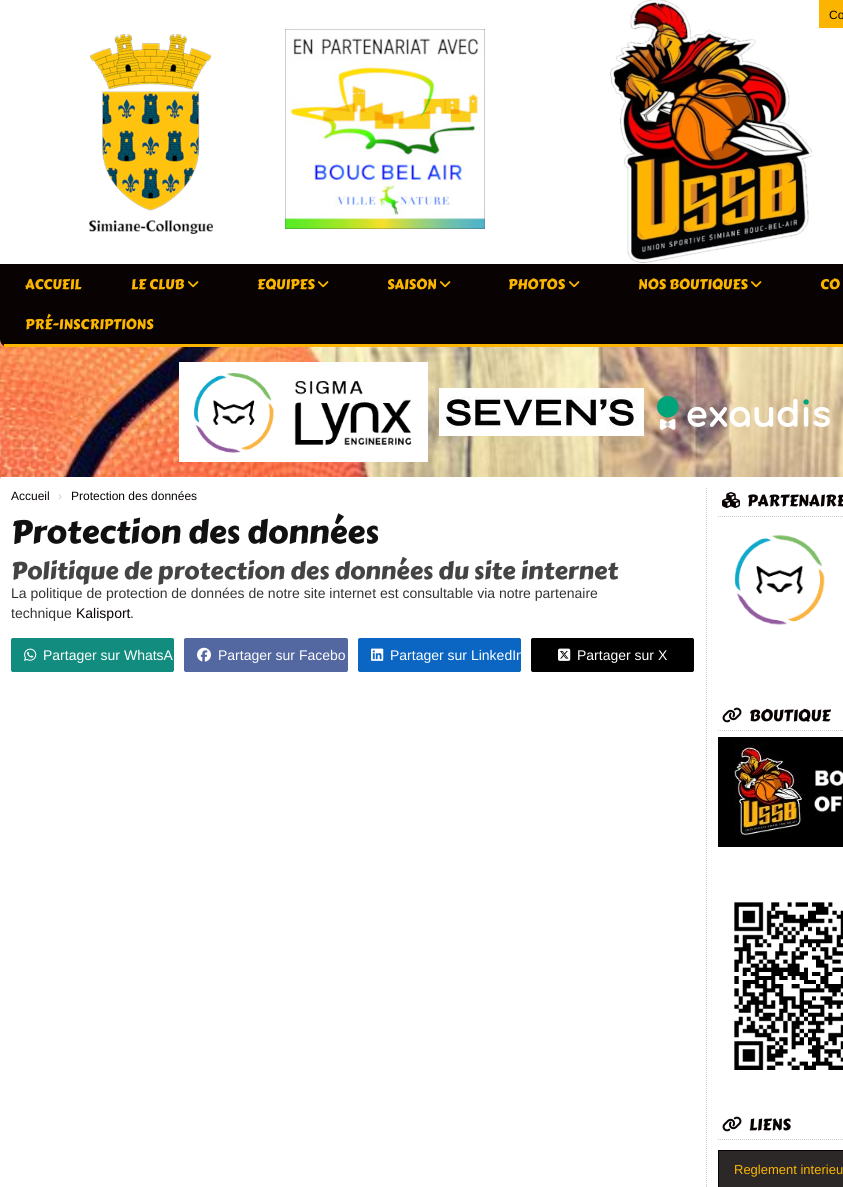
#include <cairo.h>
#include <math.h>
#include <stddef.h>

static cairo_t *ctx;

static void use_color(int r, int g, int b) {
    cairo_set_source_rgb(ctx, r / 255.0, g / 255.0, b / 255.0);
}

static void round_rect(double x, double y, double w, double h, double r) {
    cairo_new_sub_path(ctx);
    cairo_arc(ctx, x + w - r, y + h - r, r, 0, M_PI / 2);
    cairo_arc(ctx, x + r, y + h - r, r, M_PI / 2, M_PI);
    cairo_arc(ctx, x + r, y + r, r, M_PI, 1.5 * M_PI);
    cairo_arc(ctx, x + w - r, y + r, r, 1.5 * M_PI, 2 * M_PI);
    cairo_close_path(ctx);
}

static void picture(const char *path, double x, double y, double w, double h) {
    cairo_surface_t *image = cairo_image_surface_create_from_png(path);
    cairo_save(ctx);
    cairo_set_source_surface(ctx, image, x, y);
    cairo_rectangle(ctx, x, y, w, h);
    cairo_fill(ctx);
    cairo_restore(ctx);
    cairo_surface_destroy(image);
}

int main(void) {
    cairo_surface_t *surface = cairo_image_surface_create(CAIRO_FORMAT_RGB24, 843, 1187);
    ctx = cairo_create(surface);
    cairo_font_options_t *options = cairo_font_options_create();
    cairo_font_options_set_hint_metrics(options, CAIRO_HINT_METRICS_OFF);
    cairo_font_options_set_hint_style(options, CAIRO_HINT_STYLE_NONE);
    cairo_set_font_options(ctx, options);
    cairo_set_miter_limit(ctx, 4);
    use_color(255, 255, 255);
    cairo_paint(ctx);
    picture("img1.png", 0, 339, 843, 140);
    picture("img2.png", 0, 0, 843, 264);
    use_color(251, 181, 0);
    cairo_rectangle(ctx, 819, 0, 24, 28);
    cairo_fill(ctx);
    cairo_select_font_face(ctx, "Liberation Sans", CAIRO_FONT_SLANT_NORMAL, CAIRO_FONT_WEIGHT_NORMAL);
    cairo_set_font_size(ctx, 12);
    use_color(8, 2, 2);
    cairo_move_to(ctx, 829, 19);
    cairo_show_text(ctx, "Co");
    cairo_new_path(ctx);
    cairo_move_to(ctx, 0, 264);
    cairo_line_to(ctx, 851, 264);
    cairo_line_to(ctx, 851, 339);
    cairo_curve_to(ctx, 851, 343.5, 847.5, 347, 843, 347);
    cairo_line_to(ctx, 8, 347);
    cairo_curve_to(ctx, 3.5, 347, 0, 343.5, 0, 339);
    cairo_close_path(ctx);
    cairo_fill(ctx);
    use_color(251, 181, 0);
    cairo_rectangle(ctx, 4, 344, 839, 3);
    cairo_fill(ctx);
    cairo_select_font_face(ctx, "Carter One", CAIRO_FONT_SLANT_NORMAL, CAIRO_FONT_WEIGHT_NORMAL);
    cairo_set_font_size(ctx, 14);
    cairo_move_to(ctx, 25, 289);
    cairo_show_text(ctx, "ACCUEIL");
    cairo_move_to(ctx, 131, 289);
    cairo_show_text(ctx, "LE CLUB");
    picture("img3.png", 188, 281, 11, 7);
    cairo_move_to(ctx, 257, 289);
    cairo_show_text(ctx, "EQUIPES");
    picture("img3.png", 318, 281, 11, 7);
    cairo_move_to(ctx, 387, 289);
    cairo_show_text(ctx, "SAISON");
    picture("img3.png", 440, 281, 11, 7);
    cairo_move_to(ctx, 508, 289);
    cairo_show_text(ctx, "PHOTOS");
    picture("img3.png", 569, 281, 11, 7);
    cairo_move_to(ctx, 638, 289);
    cairo_show_text(ctx, "NOS BOUTIQUES");
    picture("img3.png", 751, 281, 11, 7);
    cairo_move_to(ctx, 820, 289);
    cairo_show_text(ctx, "CO");
    cairo_move_to(ctx, 25, 329);
    cairo_show_text(ctx, "PRÉ-INSCRIPTIONS");
    picture("img4.png", 179, 362, 249, 100);
    picture("img5.png", 439, 388, 205, 48);
    picture("img6.png", 657, 396, 173, 34);
    use_color(255, 255, 255);
    round_rect(0, 477, 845, 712, 2);
    cairo_fill(ctx);
    cairo_select_font_face(ctx, "Liberation Sans", CAIRO_FONT_SLANT_NORMAL, CAIRO_FONT_WEIGHT_NORMAL);
    cairo_set_font_size(ctx, 12);
    use_color(8, 2, 2);
    cairo_move_to(ctx, 11, 500);
    cairo_show_text(ctx, "Accueil");
    use_color(204, 204, 204);
    cairo_move_to(ctx, 58, 500);
    cairo_show_text(ctx, "›");
    use_color(8, 2, 2);
    cairo_move_to(ctx, 71, 500);
    cairo_show_text(ctx, "Protection des données");
    cairo_select_font_face(ctx, "Carter One", CAIRO_FONT_SLANT_NORMAL, CAIRO_FONT_WEIGHT_NORMAL);
    cairo_set_font_size(ctx, 32);
    use_color(17, 17, 17);
    cairo_move_to(ctx, 11, 543);
    cairo_show_text(ctx, "Protection des données");
    cairo_set_font_size(ctx, 24);
    use_color(68, 68, 68);
    cairo_move_to(ctx, 11, 579);
    cairo_show_text(ctx, "Politique de protection des données du site internet");
    cairo_select_font_face(ctx, "Liberation Sans", CAIRO_FONT_SLANT_NORMAL, CAIRO_FONT_WEIGHT_NORMAL);
    cairo_set_font_size(ctx, 14);
    use_color(51, 51, 51);
    cairo_move_to(ctx, 11, 598);
    cairo_show_text(ctx, "La politique de protection de données de notre site internet est consultable via notre partenaire");
    cairo_move_to(ctx, 11, 618);
    cairo_show_text(ctx, "technique");
    use_color(8, 2, 2);
    cairo_move_to(ctx, 76, 618);
    cairo_show_text(ctx, "Kalisport");
    use_color(51, 51, 51);
    cairo_move_to(ctx, 130, 618);
    cairo_show_text(ctx, ".");
    use_color(18, 140, 126);
    round_rect(11.5, 638.5, 162, 33, 1.5);
    cairo_fill_preserve(ctx);
    cairo_set_line_width(ctx, 1);
    cairo_stroke(ctx);
    picture("img7.png", 24, 648, 13, 13);
    use_color(255, 255, 255);
    cairo_move_to(ctx, 43, 660);
    cairo_show_text(ctx, "Partager sur WhatsA");
    use_color(83, 103, 160);
    round_rect(184.5, 638.5, 163, 33, 1.5);
    cairo_fill_preserve(ctx);
    cairo_stroke(ctx);
    picture("img8.png", 197, 647, 14, 15);
    use_color(255, 255, 255);
    cairo_move_to(ctx, 218, 660);
    cairo_show_text(ctx, "Partager sur Facebo");
    use_color(10, 102, 194);
    round_rect(358.5, 638.5, 162, 33, 1.5);
    cairo_fill_preserve(ctx);
    cairo_stroke(ctx);
    picture("img9.png", 371, 648, 13, 13);
    use_color(255, 255, 255);
    cairo_move_to(ctx, 390, 660);
    cairo_show_text(ctx, "Partager sur LinkedIn");
    use_color(0, 0, 0);
    round_rect(531.5, 638.5, 162, 33, 1.5);
    cairo_fill_preserve(ctx);
    cairo_stroke(ctx);
    picture("img10.png", 558, 648, 13, 13);
    use_color(255, 255, 255);
    cairo_move_to(ctx, 577, 660);
    cairo_show_text(ctx, "Partager sur X");
    cairo_new_path(ctx);
    cairo_move_to(ctx, 706.5, 488);
    cairo_line_to(ctx, 706.5, 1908);
    use_color(204, 204, 204);
    cairo_set_dash(ctx, (double[]){1, 1}, 2, 0);
    cairo_stroke(ctx);
    cairo_new_path(ctx);
    cairo_move_to(ctx, 718, 516.5);
    cairo_line_to(ctx, 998, 516.5);
    cairo_stroke(ctx);
    picture("img11.png", 722, 492, 18, 16);
    cairo_select_font_face(ctx, "Carter One", CAIRO_FONT_SLANT_NORMAL, CAIRO_FONT_WEIGHT_NORMAL);
    cairo_set_font_size(ctx, 16);
    use_color(8, 2, 2);
    cairo_move_to(ctx, 747, 506);
    cairo_show_text(ctx, "PARTENAIRE");
    picture("img12.png", 734, 535, 91, 90);
    cairo_new_path(ctx);
    cairo_move_to(ctx, 718, 730.5);
    cairo_line_to(ctx, 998, 730.5);
    use_color(204, 204, 204);
    cairo_stroke(ctx);
    picture("img13.png", 722, 707, 20, 16);
    use_color(8, 2, 2);
    cairo_move_to(ctx, 749, 721);
    cairo_show_text(ctx, "BOUTIQUE");
    picture("img14.png", 718, 737, 125, 110);
    picture("img15.png", 734, 902, 109, 168);
    cairo_new_path(ctx);
    cairo_move_to(ctx, 718, 1139.5);
    cairo_line_to(ctx, 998, 1139.5);
    use_color(204, 204, 204);
    cairo_stroke(ctx);
    picture("img13.png", 722, 1116, 20, 16);
    use_color(8, 2, 2);
    cairo_move_to(ctx, 749, 1130);
    cairo_show_text(ctx, "LIENS");
    use_color(45, 40, 40);
    cairo_rectangle(ctx, 718.5, 1150.5, 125, 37);
    cairo_fill_preserve(ctx);
    use_color(8, 2, 2);
    cairo_set_dash(ctx, NULL, 0, 0);
    cairo_stroke(ctx);
    cairo_select_font_face(ctx, "Liberation Sans", CAIRO_FONT_SLANT_NORMAL, CAIRO_FONT_WEIGHT_NORMAL);
    cairo_set_font_size(ctx, 13);
    use_color(251, 181, 0);
    cairo_move_to(ctx, 734, 1174);
    cairo_show_text(ctx, "Reglement interieu");
    cairo_surface_write_to_png(surface, "result.png");
    cairo_font_options_destroy(options);
    cairo_destroy(ctx);
    cairo_surface_destroy(surface);
    return 0;
}
